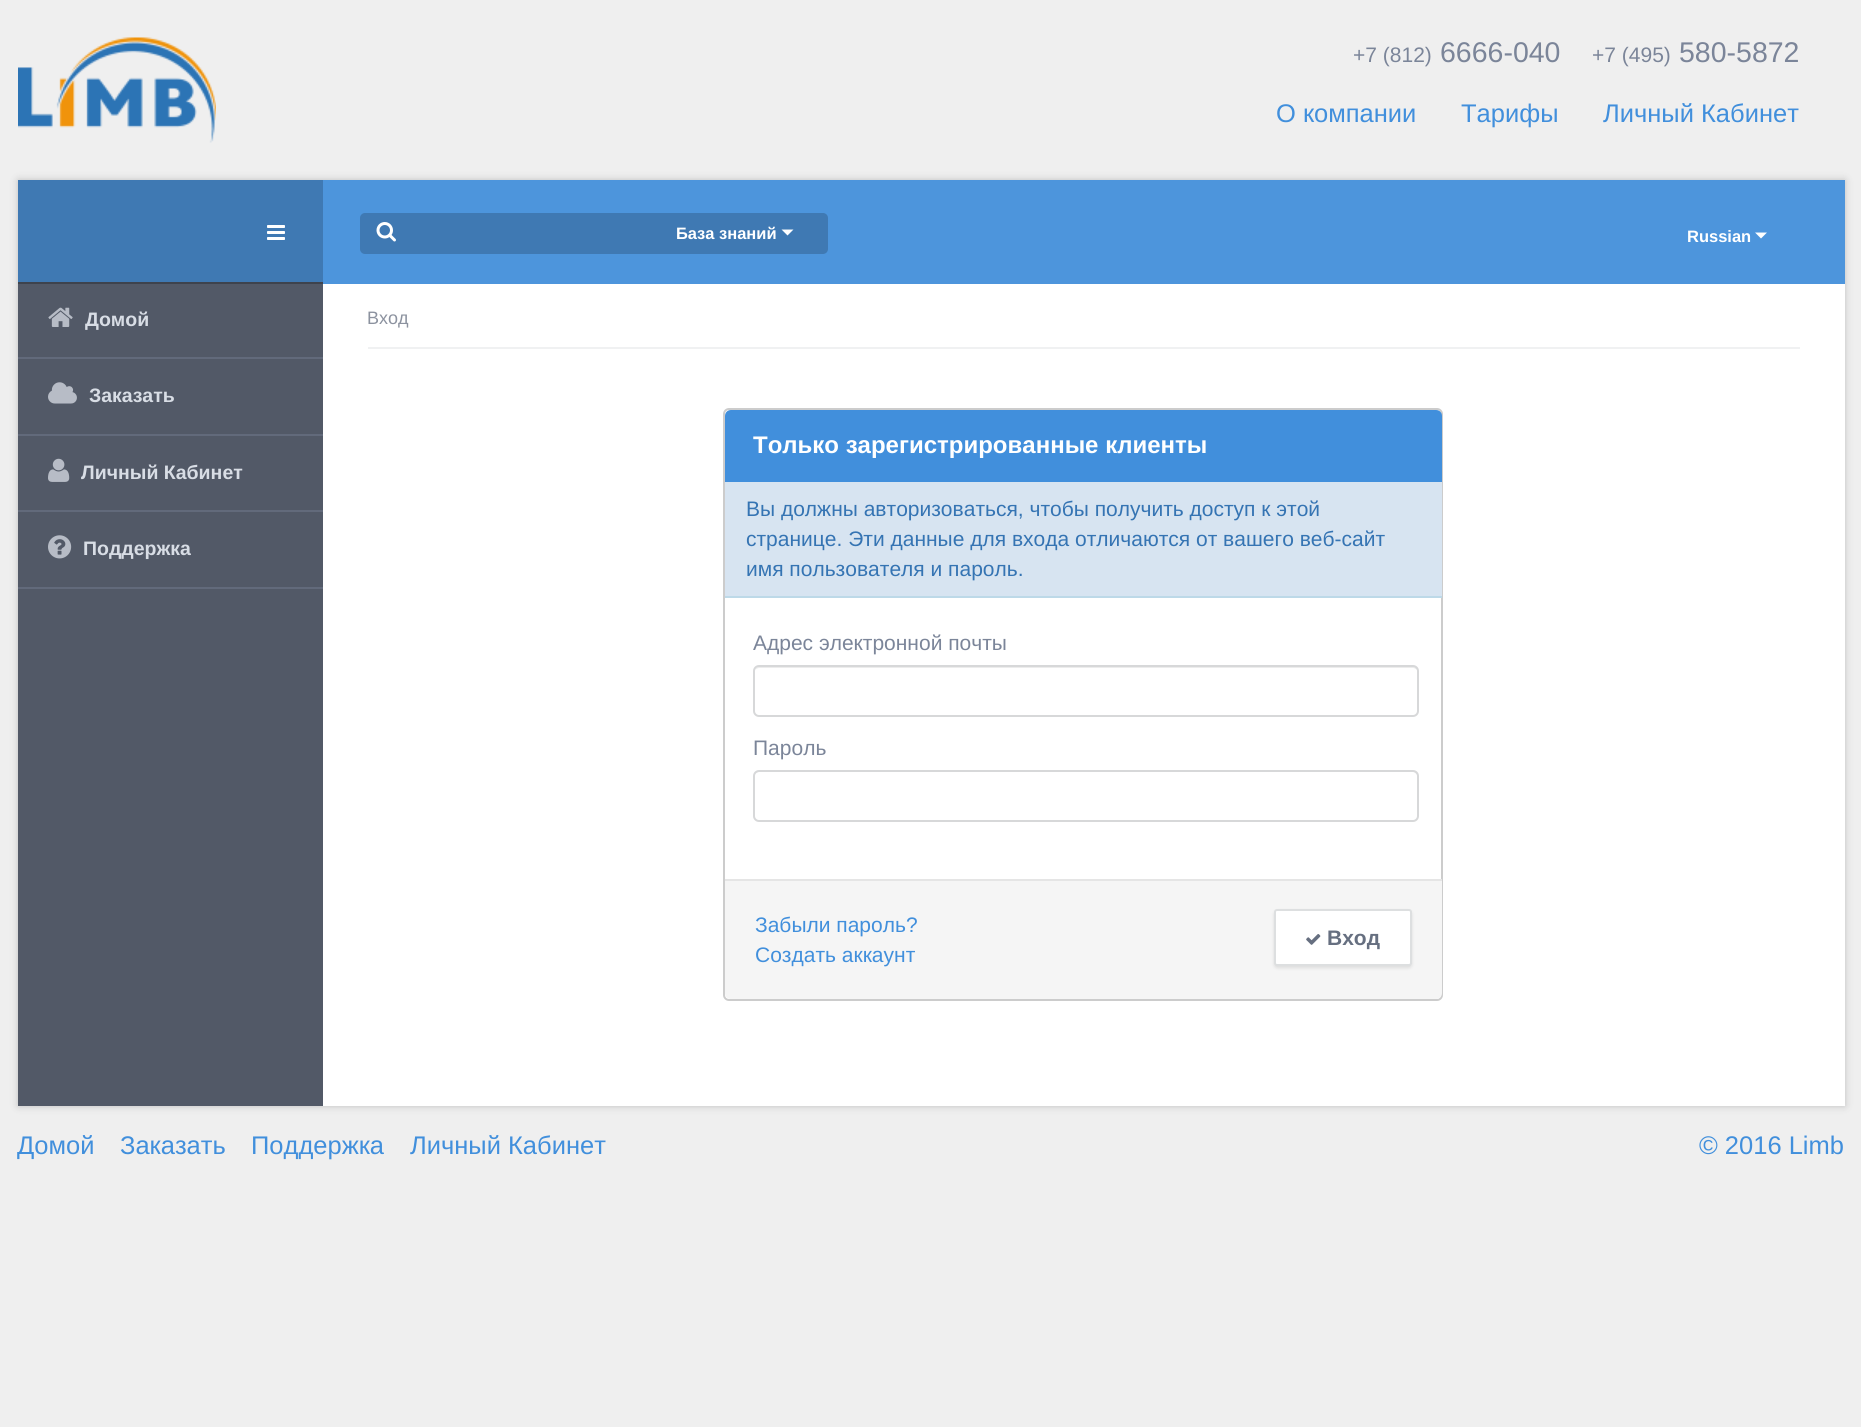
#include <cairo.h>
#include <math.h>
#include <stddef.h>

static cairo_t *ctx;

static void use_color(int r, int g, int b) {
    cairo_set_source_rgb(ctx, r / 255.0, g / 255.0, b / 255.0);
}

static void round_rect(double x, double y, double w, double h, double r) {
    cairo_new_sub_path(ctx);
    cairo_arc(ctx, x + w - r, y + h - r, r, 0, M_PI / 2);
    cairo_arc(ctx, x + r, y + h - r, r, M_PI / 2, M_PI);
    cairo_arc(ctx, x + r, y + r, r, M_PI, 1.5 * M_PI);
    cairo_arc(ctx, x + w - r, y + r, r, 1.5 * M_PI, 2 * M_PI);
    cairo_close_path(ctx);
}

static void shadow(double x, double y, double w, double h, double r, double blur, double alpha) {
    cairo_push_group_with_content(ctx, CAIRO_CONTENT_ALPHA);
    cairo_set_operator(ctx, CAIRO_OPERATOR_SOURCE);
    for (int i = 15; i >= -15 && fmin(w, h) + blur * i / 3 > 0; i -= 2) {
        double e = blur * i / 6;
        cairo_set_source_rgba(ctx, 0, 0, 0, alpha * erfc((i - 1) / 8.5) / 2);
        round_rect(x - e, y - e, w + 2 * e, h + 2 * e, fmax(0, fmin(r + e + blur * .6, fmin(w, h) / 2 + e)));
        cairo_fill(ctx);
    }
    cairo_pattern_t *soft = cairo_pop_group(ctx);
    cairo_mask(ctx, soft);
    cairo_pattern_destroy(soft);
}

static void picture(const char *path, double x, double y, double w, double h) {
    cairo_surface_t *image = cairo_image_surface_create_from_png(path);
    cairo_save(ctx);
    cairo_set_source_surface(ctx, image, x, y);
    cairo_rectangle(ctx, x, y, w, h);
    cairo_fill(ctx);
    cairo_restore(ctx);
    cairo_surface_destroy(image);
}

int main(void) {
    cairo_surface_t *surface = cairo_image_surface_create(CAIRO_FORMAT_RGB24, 1861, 1427);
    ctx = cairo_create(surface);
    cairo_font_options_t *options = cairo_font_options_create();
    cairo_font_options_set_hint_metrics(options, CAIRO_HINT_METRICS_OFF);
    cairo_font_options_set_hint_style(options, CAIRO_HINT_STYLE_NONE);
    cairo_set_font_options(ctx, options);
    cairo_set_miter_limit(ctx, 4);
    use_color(239, 239, 239);
    cairo_paint(ctx);
    picture("img1.png", 18, 37, 198, 106);
    cairo_select_font_face(ctx, "Liberation Sans", CAIRO_FONT_SLANT_NORMAL, CAIRO_FONT_WEIGHT_NORMAL);
    cairo_set_font_size(ctx, 21);
    use_color(123, 133, 153);
    cairo_move_to(ctx, 1353, 62);
    cairo_show_text(ctx, "+7 (812)");
    cairo_set_font_size(ctx, 28.5);
    cairo_move_to(ctx, 1440, 62);
    cairo_show_text(ctx, "6666-040");
    cairo_set_font_size(ctx, 21);
    cairo_move_to(ctx, 1592, 62);
    cairo_show_text(ctx, "+7 (495)");
    cairo_set_font_size(ctx, 28.5);
    cairo_move_to(ctx, 1679, 62);
    cairo_show_text(ctx, "580-5872");
    cairo_set_font_size(ctx, 25.5);
    use_color(65, 143, 220);
    cairo_move_to(ctx, 1276, 122);
    cairo_show_text(ctx, "О компании");
    cairo_move_to(ctx, 1461, 122);
    cairo_show_text(ctx, "Тарифы");
    cairo_move_to(ctx, 1603, 122);
    cairo_show_text(ctx, "Личный Кабинет");
    use_color(0, 0, 0);
    shadow(18, 180, 1827, 926, 0, 4, 0.2);
    use_color(82, 89, 103);
    cairo_rectangle(ctx, 18, 284, 305, 822);
    cairo_fill(ctx);
    use_color(62, 67, 77);
    cairo_new_path(ctx);
    cairo_move_to(ctx, 18, 282);
    cairo_line_to(ctx, 18, 284);
    cairo_line_to(ctx, 323, 284);
    cairo_line_to(ctx, 323, 182);
    cairo_line_to(ctx, 322, 182);
    cairo_line_to(ctx, 322, 282);
    cairo_close_path(ctx);
    cairo_fill(ctx);
    use_color(63, 121, 179);
    cairo_rectangle(ctx, 18, 180, 305, 102);
    cairo_fill(ctx);
    picture("img2.png", 267, 225, 18, 15);
    use_color(98, 106, 123);
    cairo_rectangle(ctx, 18, 357, 305, 2);
    cairo_fill(ctx);
    picture("img3.png", 48, 307, 25, 20);
    cairo_select_font_face(ctx, "Liberation Sans", CAIRO_FONT_SLANT_NORMAL, CAIRO_FONT_WEIGHT_BOLD);
    cairo_set_font_size(ctx, 19.5);
    use_color(216, 221, 229);
    cairo_move_to(ctx, 85, 326);
    cairo_show_text(ctx, "Домой");
    use_color(98, 106, 123);
    cairo_rectangle(ctx, 18, 434, 305, 2);
    cairo_fill(ctx);
    picture("img4.png", 48, 382, 29, 22);
    use_color(216, 221, 229);
    cairo_move_to(ctx, 89, 402);
    cairo_show_text(ctx, "Заказать");
    use_color(98, 106, 123);
    cairo_rectangle(ctx, 18, 510, 305, 2);
    cairo_fill(ctx);
    picture("img5.png", 48, 458, 22, 24);
    use_color(216, 221, 229);
    cairo_move_to(ctx, 81, 479);
    cairo_show_text(ctx, "Личный Кабинет");
    use_color(98, 106, 123);
    cairo_rectangle(ctx, 18, 587, 305, 2);
    cairo_fill(ctx);
    picture("img6.png", 48, 535, 24, 24);
    use_color(216, 221, 229);
    cairo_move_to(ctx, 83, 555);
    cairo_show_text(ctx, "Поддержка");
    use_color(77, 149, 220);
    cairo_rectangle(ctx, 323, 180, 1522, 104);
    cairo_fill(ctx);
    use_color(63, 121, 179);
    round_rect(360, 213, 468, 41, 5);
    cairo_fill(ctx);
    picture("img7.png", 376, 222, 20, 20);
    cairo_set_font_size(ctx, 16.5);
    use_color(255, 255, 255);
    cairo_move_to(ctx, 676, 239);
    cairo_show_text(ctx, "База знаний");
    cairo_new_path(ctx);
    cairo_move_to(ctx, 781.5, 229.5);
    cairo_line_to(ctx, 793.5, 229.5);
    cairo_line_to(ctx, 787.5, 235.5);
    cairo_close_path(ctx);
    cairo_fill(ctx);
    cairo_move_to(ctx, 1687, 242);
    cairo_show_text(ctx, "Russian");
    cairo_new_path(ctx);
    cairo_move_to(ctx, 1755, 232.5);
    cairo_line_to(ctx, 1767, 232.5);
    cairo_line_to(ctx, 1761, 238.5);
    cairo_close_path(ctx);
    cairo_fill(ctx);
    cairo_rectangle(ctx, 323, 284, 1522, 822);
    cairo_fill(ctx);
    use_color(240, 241, 242);
    cairo_rectangle(ctx, 368, 347, 1432, 2);
    cairo_fill(ctx);
    cairo_select_font_face(ctx, "Liberation Sans", CAIRO_FONT_SLANT_NORMAL, CAIRO_FONT_WEIGHT_NORMAL);
    cairo_set_font_size(ctx, 18);
    use_color(140, 146, 159);
    cairo_move_to(ctx, 367, 324);
    cairo_show_text(ctx, "Вход");
    round_rect(724, 409, 718, 591, 5);
    use_color(204, 204, 204);
    cairo_stroke(ctx);
    use_color(65, 143, 220);
    cairo_new_path(ctx);
    cairo_move_to(ctx, 731, 410);
    cairo_line_to(ctx, 1436, 410);
    cairo_curve_to(ctx, 1439.5, 410, 1442, 412.5, 1442, 416);
    cairo_line_to(ctx, 1442, 482);
    cairo_line_to(ctx, 725, 482);
    cairo_line_to(ctx, 725, 416);
    cairo_curve_to(ctx, 725, 412.5, 727.5, 410, 731, 410);
    cairo_close_path(ctx);
    cairo_fill(ctx);
    cairo_select_font_face(ctx, "Liberation Sans", CAIRO_FONT_SLANT_NORMAL, CAIRO_FONT_WEIGHT_BOLD);
    cairo_set_font_size(ctx, 24);
    use_color(255, 255, 255);
    cairo_move_to(ctx, 753, 453);
    cairo_show_text(ctx, "Только зарегистрированные клиенты");
    use_color(215, 228, 241);
    cairo_rectangle(ctx, 725, 482, 717, 114);
    cairo_fill(ctx);
    use_color(189, 217, 232);
    cairo_rectangle(ctx, 725, 596, 717, 2);
    cairo_fill(ctx);
    cairo_select_font_face(ctx, "Liberation Sans", CAIRO_FONT_SLANT_NORMAL, CAIRO_FONT_WEIGHT_NORMAL);
    cairo_set_font_size(ctx, 21);
    use_color(53, 116, 179);
    cairo_move_to(ctx, 746, 516);
    cairo_show_text(ctx, "Вы должны авторизоваться, чтобы получить доступ к этой");
    cairo_move_to(ctx, 746, 546);
    cairo_show_text(ctx, "странице. Эти данные для входа отличаются от вашего веб-сайт");
    cairo_move_to(ctx, 746, 576);
    cairo_show_text(ctx, "имя пользователя и пароль.");
    use_color(123, 133, 153);
    cairo_move_to(ctx, 753, 650);
    cairo_show_text(ctx, "Адрес электронной почты");
    use_color(236, 236, 236);
    cairo_new_path(ctx);
    cairo_move_to(ctx, 759, 668);
    cairo_line_to(ctx, 1413, 668);
    cairo_curve_to(ctx, 1415, 668, 1418, 670, 1418, 672);
    cairo_line_to(ctx, 1418, 671);
    cairo_curve_to(ctx, 1418, 668, 1416, 666, 1413, 666);
    cairo_line_to(ctx, 760, 666);
    cairo_curve_to(ctx, 758, 666, 756, 668, 755, 670);
    cairo_curve_to(ctx, 756, 669, 758, 668, 759, 668);
    cairo_close_path(ctx);
    cairo_fill(ctx);
    round_rect(754, 666, 664, 50, 5);
    use_color(215, 216, 217);
    cairo_stroke(ctx);
    use_color(123, 133, 153);
    cairo_move_to(ctx, 753, 755);
    cairo_show_text(ctx, "Пароль");
    use_color(236, 236, 236);
    cairo_new_path(ctx);
    cairo_move_to(ctx, 759, 772);
    cairo_line_to(ctx, 1413, 772);
    cairo_curve_to(ctx, 1415, 772, 1418, 775, 1418, 777);
    cairo_line_to(ctx, 1418, 776);
    cairo_curve_to(ctx, 1418, 773, 1416, 771, 1413, 771);
    cairo_line_to(ctx, 760, 771);
    cairo_curve_to(ctx, 758, 771, 756, 772, 755, 774);
    cairo_curve_to(ctx, 756, 773, 758, 772, 759, 772);
    cairo_close_path(ctx);
    cairo_fill(ctx);
    round_rect(754, 771, 664, 50, 5);
    use_color(215, 216, 217);
    cairo_stroke(ctx);
    use_color(245, 245, 245);
    cairo_new_path(ctx);
    cairo_move_to(ctx, 725, 879);
    cairo_line_to(ctx, 1442, 879);
    cairo_line_to(ctx, 1442, 993);
    cairo_curve_to(ctx, 1442, 996.5, 1439.5, 999, 1436, 999);
    cairo_line_to(ctx, 731, 999);
    cairo_curve_to(ctx, 727.5, 999, 725, 996.5, 725, 993);
    cairo_close_path(ctx);
    cairo_fill(ctx);
    use_color(229, 229, 229);
    cairo_rectangle(ctx, 725, 879, 717, 2);
    cairo_fill(ctx);
    use_color(65, 143, 220);
    cairo_move_to(ctx, 755, 932);
    cairo_show_text(ctx, "Забыли пароль?");
    cairo_move_to(ctx, 755, 962);
    cairo_show_text(ctx, "Создать аккаунт");
    use_color(0, 0, 0);
    shadow(1274, 911, 138, 57, 3, 1.5, 0.1);
    use_color(255, 255, 255);
    round_rect(1275, 910, 136, 55, 2);
    cairo_fill_preserve(ctx);
    use_color(221, 223, 224);
    cairo_stroke(ctx);
    picture("img8.png", 1306, 934, 15, 11);
    cairo_select_font_face(ctx, "Liberation Sans", CAIRO_FONT_SLANT_NORMAL, CAIRO_FONT_WEIGHT_BOLD);
    use_color(102, 111, 128);
    cairo_move_to(ctx, 1327, 945);
    cairo_show_text(ctx, "Вход");
    cairo_select_font_face(ctx, "Liberation Sans", CAIRO_FONT_SLANT_NORMAL, CAIRO_FONT_WEIGHT_NORMAL);
    cairo_set_font_size(ctx, 25.5);
    use_color(65, 143, 220);
    cairo_move_to(ctx, 17, 1154);
    cairo_show_text(ctx, "Домой");
    cairo_move_to(ctx, 120, 1154);
    cairo_show_text(ctx, "Заказать");
    cairo_move_to(ctx, 251, 1154);
    cairo_show_text(ctx, "Поддержка");
    cairo_move_to(ctx, 410, 1154);
    cairo_show_text(ctx, "Личный Кабинет");
    cairo_move_to(ctx, 1699, 1154);
    cairo_show_text(ctx, "© 2016 Limb");
    cairo_surface_write_to_png(surface, "result.png");
    cairo_font_options_destroy(options);
    cairo_destroy(ctx);
    cairo_surface_destroy(surface);
    return 0;
}
